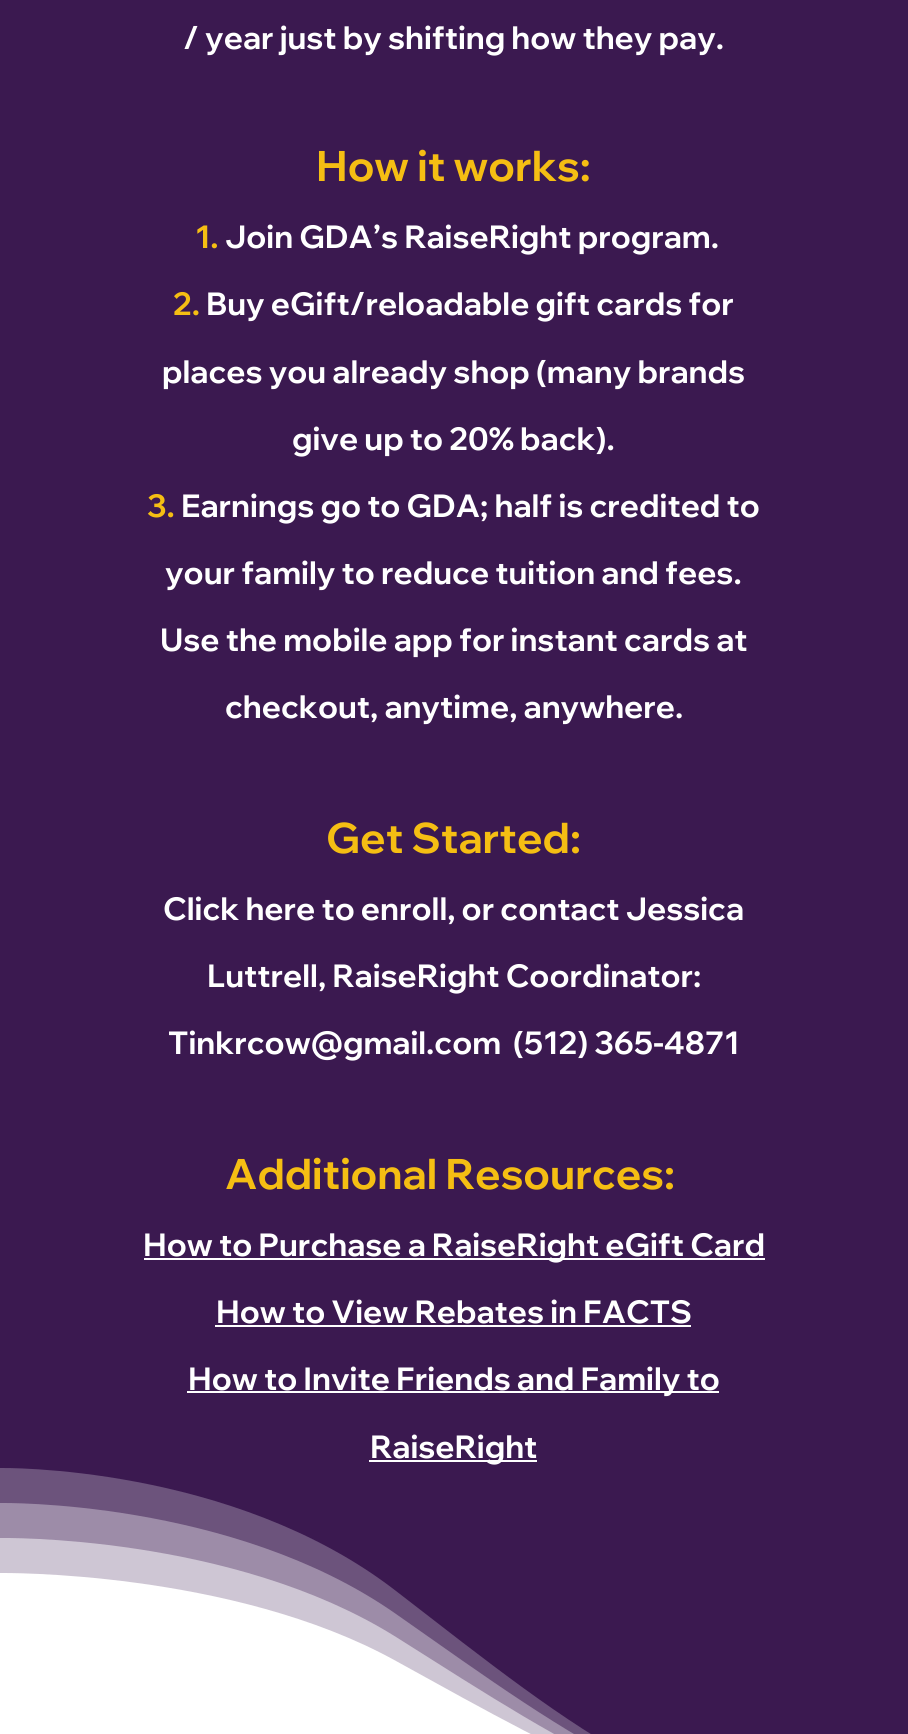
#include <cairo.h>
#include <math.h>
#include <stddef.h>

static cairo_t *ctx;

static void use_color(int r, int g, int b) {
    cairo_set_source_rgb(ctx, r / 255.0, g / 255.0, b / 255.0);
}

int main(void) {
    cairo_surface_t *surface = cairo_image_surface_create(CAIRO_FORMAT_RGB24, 908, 1734);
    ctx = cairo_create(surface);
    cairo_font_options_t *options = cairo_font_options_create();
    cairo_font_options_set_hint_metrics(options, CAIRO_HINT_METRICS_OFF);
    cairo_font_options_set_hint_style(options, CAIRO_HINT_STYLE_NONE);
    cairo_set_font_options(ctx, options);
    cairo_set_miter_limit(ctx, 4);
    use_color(59, 25, 80);
    cairo_paint(ctx);
    cairo_select_font_face(ctx, "Wix Madefor Display", CAIRO_FONT_SLANT_NORMAL, CAIRO_FONT_WEIGHT_BOLD);
    cairo_set_font_size(ctx, 31.5);
    use_color(255, 255, 255);
    cairo_move_to(ctx, 183, 49);
    cairo_show_text(ctx, "/ year just by shifting how they pay.");
    cairo_set_font_size(ctx, 42);
    use_color(245, 190, 19);
    cairo_move_to(ctx, 316, 181);
    cairo_show_text(ctx, "How it works:");
    cairo_set_font_size(ctx, 31.5);
    cairo_move_to(ctx, 195, 248);
    cairo_show_text(ctx, "1.");
    use_color(255, 255, 255);
    cairo_move_to(ctx, 225, 248);
    cairo_show_text(ctx, "Join GDA’s RaiseRight program.");
    use_color(245, 190, 19);
    cairo_move_to(ctx, 173, 315);
    cairo_show_text(ctx, "2.");
    use_color(255, 255, 255);
    cairo_move_to(ctx, 206, 315);
    cairo_show_text(ctx, "Buy eGift/reloadable gift cards for");
    cairo_move_to(ctx, 162, 383);
    cairo_show_text(ctx, "places you already shop (many brands");
    cairo_move_to(ctx, 292, 450);
    cairo_show_text(ctx, "give up to 20% back).");
    use_color(245, 190, 19);
    cairo_move_to(ctx, 147, 517);
    cairo_show_text(ctx, "3.");
    use_color(255, 255, 255);
    cairo_move_to(ctx, 181, 517);
    cairo_show_text(ctx, "Earnings go to GDA; half is credited to");
    cairo_move_to(ctx, 165, 584);
    cairo_show_text(ctx, "your family to reduce tuition and fees.");
    cairo_move_to(ctx, 160, 651);
    cairo_show_text(ctx, "Use the mobile app for instant cards at");
    cairo_move_to(ctx, 225, 718);
    cairo_show_text(ctx, "checkout, anytime, anywhere.");
    cairo_set_font_size(ctx, 42);
    use_color(245, 190, 19);
    cairo_move_to(ctx, 326, 853);
    cairo_show_text(ctx, "Get Started:");
    cairo_set_font_size(ctx, 31.5);
    use_color(255, 255, 255);
    cairo_move_to(ctx, 163, 920);
    cairo_show_text(ctx, "Click here to enroll, or contact Jessica");
    cairo_move_to(ctx, 207, 987);
    cairo_show_text(ctx, "Luttrell, RaiseRight Coordinator:");
    cairo_move_to(ctx, 168, 1054);
    cairo_show_text(ctx, "Tinkrcow@gmail.com");
    cairo_move_to(ctx, 513, 1054);
    cairo_show_text(ctx, "(512) 365-4871");
    cairo_set_font_size(ctx, 42);
    use_color(245, 190, 19);
    cairo_move_to(ctx, 225, 1189);
    cairo_show_text(ctx, "Additional Resources:");
    use_color(255, 255, 255);
    cairo_rectangle(ctx, 144, 1258, 621, 2);
    cairo_fill(ctx);
    cairo_set_font_size(ctx, 31.5);
    cairo_move_to(ctx, 143, 1256);
    cairo_show_text(ctx, "How to Purchase a RaiseRight eGift Card");
    cairo_move_to(ctx, 216, 1323);
    cairo_show_text(ctx, "How to View Rebates in FACTS");
    cairo_rectangle(ctx, 215, 1325, 476, 2);
    cairo_fill(ctx);
    cairo_rectangle(ctx, 187, 1391, 532, 2);
    cairo_fill(ctx);
    cairo_move_to(ctx, 188, 1390);
    cairo_show_text(ctx, "How to Invite Friends and Family to");
    cairo_rectangle(ctx, 369, 1460, 168, 2);
    cairo_fill(ctx);
    cairo_move_to(ctx, 370, 1458);
    cairo_show_text(ctx, "RaiseRight");
    use_color(108, 83, 124);
    cairo_new_path(ctx);
    cairo_move_to(ctx, 908, 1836);
    cairo_line_to(ctx, 908, 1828);
    cairo_curve_to(ctx, 693, 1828, 581, 1734, 396, 1591);
    cairo_curve_to(ctx, 232, 1464, 0, 1468, 0, 1468);
    cairo_line_to(ctx, 0, 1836);
    cairo_close_path(ctx);
    cairo_fill(ctx);
    use_color(157, 140, 168);
    cairo_new_path(ctx);
    cairo_move_to(ctx, 908, 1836);
    cairo_line_to(ctx, 908, 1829);
    cairo_curve_to(ctx, 693, 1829, 581, 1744, 396, 1614);
    cairo_curve_to(ctx, 232, 1499, 0, 1503, 0, 1503);
    cairo_line_to(ctx, 0, 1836);
    cairo_close_path(ctx);
    cairo_fill(ctx);
    use_color(206, 198, 212);
    cairo_new_path(ctx);
    cairo_move_to(ctx, 908, 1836);
    cairo_line_to(ctx, 908, 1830);
    cairo_curve_to(ctx, 693, 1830, 581, 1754, 396, 1637);
    cairo_curve_to(ctx, 232, 1534, 0, 1538, 0, 1538);
    cairo_line_to(ctx, 0, 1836);
    cairo_close_path(ctx);
    cairo_fill(ctx);
    use_color(255, 255, 255);
    cairo_new_path(ctx);
    cairo_move_to(ctx, 908, 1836);
    cairo_line_to(ctx, 908, 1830);
    cairo_curve_to(ctx, 693, 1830, 581, 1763, 396, 1661);
    cairo_curve_to(ctx, 232, 1570, 0, 1573, 0, 1573);
    cairo_line_to(ctx, 0, 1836);
    cairo_close_path(ctx);
    cairo_fill(ctx);
    cairo_surface_write_to_png(surface, "result.png");
    cairo_font_options_destroy(options);
    cairo_destroy(ctx);
    cairo_surface_destroy(surface);
    return 0;
}
